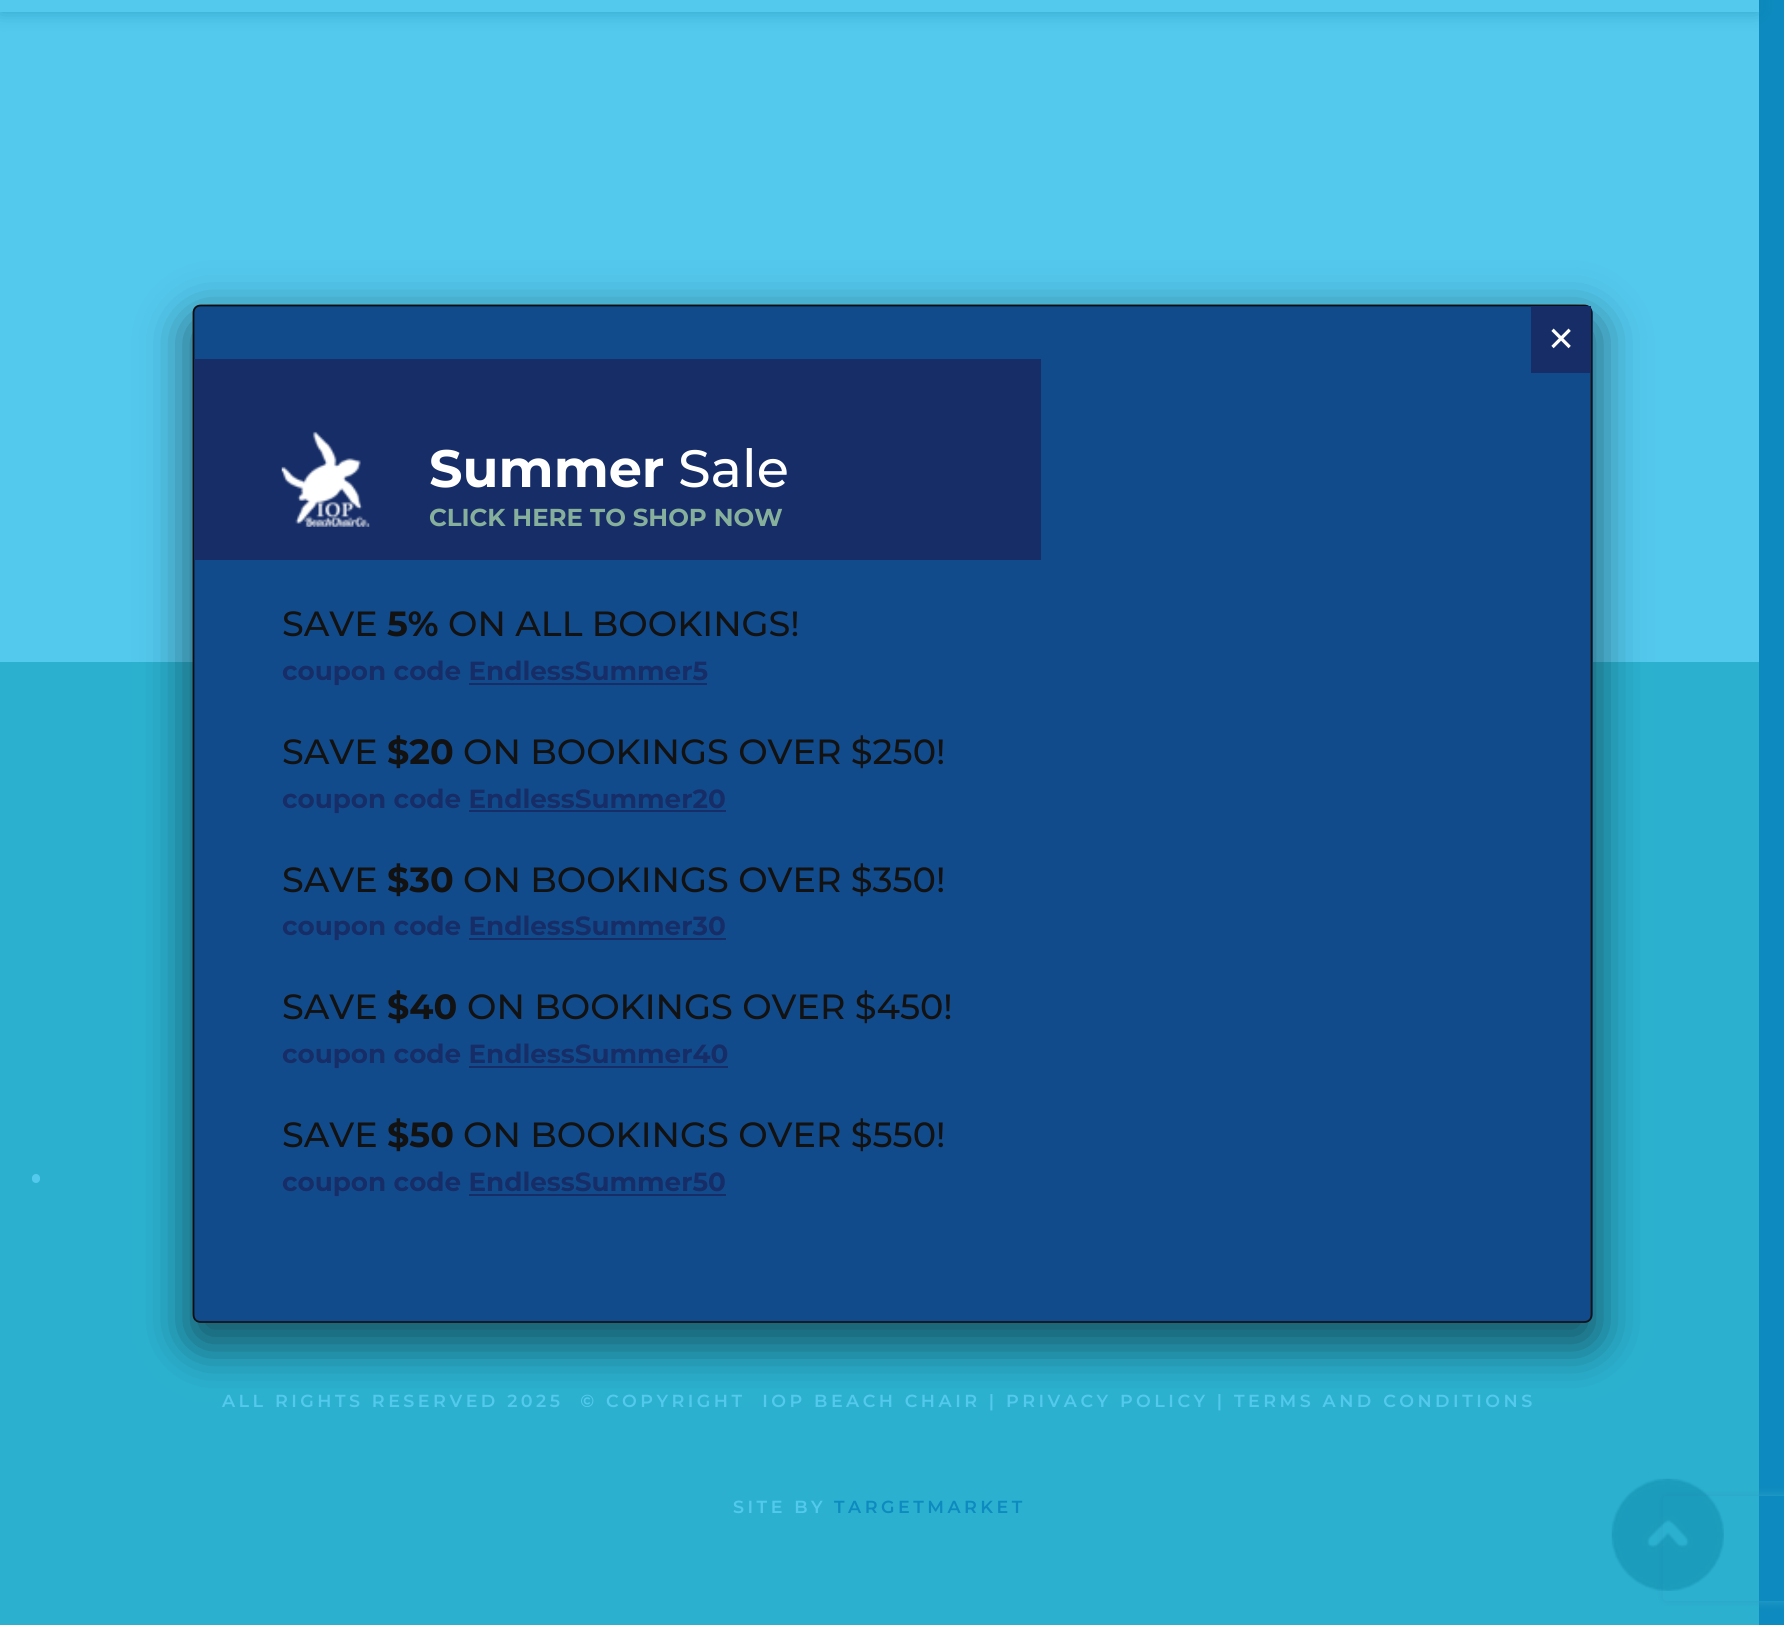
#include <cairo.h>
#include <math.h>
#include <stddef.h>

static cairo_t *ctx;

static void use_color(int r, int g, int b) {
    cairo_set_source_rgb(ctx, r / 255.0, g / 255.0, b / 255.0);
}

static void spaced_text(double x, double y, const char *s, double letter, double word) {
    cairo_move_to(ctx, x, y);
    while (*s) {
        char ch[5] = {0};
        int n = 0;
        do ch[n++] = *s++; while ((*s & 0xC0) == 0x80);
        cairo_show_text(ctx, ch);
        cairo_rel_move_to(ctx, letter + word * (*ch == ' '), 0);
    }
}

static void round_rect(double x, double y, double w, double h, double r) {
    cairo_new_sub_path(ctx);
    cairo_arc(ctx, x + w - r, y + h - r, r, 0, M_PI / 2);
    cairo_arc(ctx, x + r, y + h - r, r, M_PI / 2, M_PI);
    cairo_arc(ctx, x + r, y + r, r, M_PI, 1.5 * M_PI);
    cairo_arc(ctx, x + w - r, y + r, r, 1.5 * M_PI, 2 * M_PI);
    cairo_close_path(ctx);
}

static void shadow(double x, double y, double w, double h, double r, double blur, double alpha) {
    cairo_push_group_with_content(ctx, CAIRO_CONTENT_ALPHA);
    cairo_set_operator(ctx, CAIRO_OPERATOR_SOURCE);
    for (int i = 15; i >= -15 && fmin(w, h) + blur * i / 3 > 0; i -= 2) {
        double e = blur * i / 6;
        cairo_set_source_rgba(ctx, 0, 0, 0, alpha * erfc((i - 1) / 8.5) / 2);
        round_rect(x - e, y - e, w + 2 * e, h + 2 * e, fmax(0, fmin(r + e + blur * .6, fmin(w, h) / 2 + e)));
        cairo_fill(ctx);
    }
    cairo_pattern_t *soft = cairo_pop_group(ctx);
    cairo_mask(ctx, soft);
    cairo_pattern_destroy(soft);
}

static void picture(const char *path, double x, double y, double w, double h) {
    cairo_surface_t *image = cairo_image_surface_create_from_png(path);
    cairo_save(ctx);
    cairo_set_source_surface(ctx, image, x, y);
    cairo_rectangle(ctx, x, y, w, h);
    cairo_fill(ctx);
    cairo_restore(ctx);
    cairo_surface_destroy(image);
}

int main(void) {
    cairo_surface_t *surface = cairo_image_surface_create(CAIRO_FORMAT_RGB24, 1784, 1625);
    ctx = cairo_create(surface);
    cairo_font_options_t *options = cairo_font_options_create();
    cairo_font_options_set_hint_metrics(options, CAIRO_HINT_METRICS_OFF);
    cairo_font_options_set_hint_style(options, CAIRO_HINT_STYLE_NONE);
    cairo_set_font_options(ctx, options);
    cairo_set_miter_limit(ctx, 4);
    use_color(83, 201, 237);
    cairo_paint(ctx);
    use_color(43, 177, 207);
    cairo_rectangle(ctx, 0, 662, 1759, 963);
    cairo_fill(ctx);
    use_color(2, 2, 2);
    shadow(186, 315, 1414, 1033, 16, 22, 0.5);
    use_color(18, 75, 140);
    round_rect(193, 305, 1400, 1018, 9);
    cairo_fill(ctx);
    cairo_new_path(ctx);
    cairo_move_to(ctx, 1589.5, 307.5);
    cairo_curve_to(ctx, 1591, 309, 1591.5, 311, 1591.5, 313);
    cairo_line_to(ctx, 1591.5, 1314);
    cairo_curve_to(ctx, 1591.5, 1316.5, 1591, 1318.5, 1589.5, 1320);
    cairo_curve_to(ctx, 1588, 1321.5, 1586, 1322, 1584, 1322);
    cairo_line_to(ctx, 201, 1322);
    cairo_curve_to(ctx, 199, 1322, 197, 1321.5, 195.5, 1320);
    use_color(20, 20, 20);
    cairo_set_line_width(ctx, 1.8);
    cairo_stroke(ctx);
    cairo_new_path(ctx);
    cairo_move_to(ctx, 195.5, 1320);
    cairo_curve_to(ctx, 194, 1318.5, 193.5, 1316.5, 193.5, 1314);
    cairo_line_to(ctx, 193.5, 313);
    cairo_curve_to(ctx, 193.5, 311, 194, 309, 195.5, 307.5);
    cairo_curve_to(ctx, 197, 306, 199, 305.5, 201, 305.5);
    cairo_line_to(ctx, 1584, 305.5);
    cairo_curve_to(ctx, 1586, 305.5, 1588, 306, 1589.5, 307.5);
    use_color(13, 13, 13);
    cairo_stroke(ctx);
    use_color(22, 45, 103);
    cairo_rectangle(ctx, 1531, 306, 60, 67);
    cairo_fill(ctx);
    cairo_select_font_face(ctx, "Montserrat Thin", CAIRO_FONT_SLANT_NORMAL, CAIRO_FONT_WEIGHT_NORMAL);
    cairo_set_font_size(ctx, 56);
    use_color(255, 255, 255);
    cairo_move_to(ctx, 1545, 358);
    cairo_show_text(ctx, "×");
    use_color(22, 45, 103);
    cairo_rectangle(ctx, 194, 359, 847, 201);
    cairo_fill(ctx);
    picture("img1.png", 281, 431, 89, 96);
    cairo_select_font_face(ctx, "Montserrat", CAIRO_FONT_SLANT_NORMAL, CAIRO_FONT_WEIGHT_BOLD);
    cairo_set_font_size(ctx, 52.5);
    use_color(255, 255, 255);
    cairo_move_to(ctx, 429, 487);
    cairo_show_text(ctx, "Summer");
    cairo_select_font_face(ctx, "Montserrat Medium", CAIRO_FONT_SLANT_NORMAL, CAIRO_FONT_WEIGHT_NORMAL);
    cairo_move_to(ctx, 678, 487);
    cairo_show_text(ctx, "Sale");
    cairo_select_font_face(ctx, "Montserrat", CAIRO_FONT_SLANT_NORMAL, CAIRO_FONT_WEIGHT_BOLD);
    cairo_set_font_size(ctx, 24.5);
    use_color(134, 175, 156);
    cairo_move_to(ctx, 429, 526);
    cairo_show_text(ctx, "CLICK HERE TO SHOP NOW");
    cairo_select_font_face(ctx, "Montserrat Medium", CAIRO_FONT_SLANT_NORMAL, CAIRO_FONT_WEIGHT_NORMAL);
    cairo_set_font_size(ctx, 35);
    use_color(18, 18, 18);
    cairo_move_to(ctx, 282, 636);
    cairo_show_text(ctx, "SAVE");
    cairo_select_font_face(ctx, "Montserrat", CAIRO_FONT_SLANT_NORMAL, CAIRO_FONT_WEIGHT_BOLD);
    cairo_move_to(ctx, 387, 636);
    cairo_show_text(ctx, "5%");
    cairo_select_font_face(ctx, "Montserrat Medium", CAIRO_FONT_SLANT_NORMAL, CAIRO_FONT_WEIGHT_NORMAL);
    cairo_move_to(ctx, 448, 636);
    cairo_show_text(ctx, "ON ALL BOOKINGS!");
    cairo_select_font_face(ctx, "Montserrat", CAIRO_FONT_SLANT_NORMAL, CAIRO_FONT_WEIGHT_BOLD);
    cairo_set_font_size(ctx, 26.25);
    use_color(22, 45, 103);
    cairo_move_to(ctx, 282, 680);
    cairo_show_text(ctx, "coupon code EndlessSummer5");
    cairo_rectangle(ctx, 469, 683, 238, 2);
    cairo_fill(ctx);
    cairo_select_font_face(ctx, "Montserrat Medium", CAIRO_FONT_SLANT_NORMAL, CAIRO_FONT_WEIGHT_NORMAL);
    cairo_set_font_size(ctx, 35);
    use_color(18, 18, 18);
    cairo_move_to(ctx, 282, 764);
    cairo_show_text(ctx, "SAVE");
    cairo_select_font_face(ctx, "Montserrat", CAIRO_FONT_SLANT_NORMAL, CAIRO_FONT_WEIGHT_BOLD);
    cairo_move_to(ctx, 387, 764);
    cairo_show_text(ctx, "$20");
    cairo_select_font_face(ctx, "Montserrat Medium", CAIRO_FONT_SLANT_NORMAL, CAIRO_FONT_WEIGHT_NORMAL);
    cairo_move_to(ctx, 463, 764);
    cairo_show_text(ctx, "ON BOOKINGS OVER $250!");
    cairo_select_font_face(ctx, "Montserrat", CAIRO_FONT_SLANT_NORMAL, CAIRO_FONT_WEIGHT_BOLD);
    cairo_set_font_size(ctx, 26.25);
    use_color(22, 45, 103);
    cairo_move_to(ctx, 282, 808);
    cairo_show_text(ctx, "coupon code EndlessSummer20");
    cairo_rectangle(ctx, 469, 810, 257, 2);
    cairo_fill(ctx);
    cairo_select_font_face(ctx, "Montserrat Medium", CAIRO_FONT_SLANT_NORMAL, CAIRO_FONT_WEIGHT_NORMAL);
    cairo_set_font_size(ctx, 35);
    use_color(18, 18, 18);
    cairo_move_to(ctx, 282, 892);
    cairo_show_text(ctx, "SAVE");
    cairo_select_font_face(ctx, "Montserrat", CAIRO_FONT_SLANT_NORMAL, CAIRO_FONT_WEIGHT_BOLD);
    cairo_move_to(ctx, 387, 892);
    cairo_show_text(ctx, "$30");
    cairo_select_font_face(ctx, "Montserrat Medium", CAIRO_FONT_SLANT_NORMAL, CAIRO_FONT_WEIGHT_NORMAL);
    cairo_move_to(ctx, 463, 892);
    cairo_show_text(ctx, "ON BOOKINGS OVER $350!");
    cairo_select_font_face(ctx, "Montserrat", CAIRO_FONT_SLANT_NORMAL, CAIRO_FONT_WEIGHT_BOLD);
    cairo_set_font_size(ctx, 26.25);
    use_color(22, 45, 103);
    cairo_move_to(ctx, 282, 935);
    cairo_show_text(ctx, "coupon code EndlessSummer30");
    cairo_rectangle(ctx, 469, 938, 257, 2);
    cairo_fill(ctx);
    cairo_select_font_face(ctx, "Montserrat Medium", CAIRO_FONT_SLANT_NORMAL, CAIRO_FONT_WEIGHT_NORMAL);
    cairo_set_font_size(ctx, 35);
    use_color(18, 18, 18);
    cairo_move_to(ctx, 282, 1019);
    cairo_show_text(ctx, "SAVE");
    cairo_select_font_face(ctx, "Montserrat", CAIRO_FONT_SLANT_NORMAL, CAIRO_FONT_WEIGHT_BOLD);
    cairo_move_to(ctx, 387, 1019);
    cairo_show_text(ctx, "$40");
    cairo_select_font_face(ctx, "Montserrat Medium", CAIRO_FONT_SLANT_NORMAL, CAIRO_FONT_WEIGHT_NORMAL);
    cairo_move_to(ctx, 467, 1019);
    cairo_show_text(ctx, "ON BOOKINGS OVER $450!");
    cairo_select_font_face(ctx, "Montserrat", CAIRO_FONT_SLANT_NORMAL, CAIRO_FONT_WEIGHT_BOLD);
    cairo_set_font_size(ctx, 26.25);
    use_color(22, 45, 103);
    cairo_move_to(ctx, 282, 1063);
    cairo_show_text(ctx, "coupon code EndlessSummer40");
    cairo_rectangle(ctx, 469, 1066, 259, 2);
    cairo_fill(ctx);
    cairo_select_font_face(ctx, "Montserrat Medium", CAIRO_FONT_SLANT_NORMAL, CAIRO_FONT_WEIGHT_NORMAL);
    cairo_set_font_size(ctx, 35);
    use_color(18, 18, 18);
    cairo_move_to(ctx, 282, 1147);
    cairo_show_text(ctx, "SAVE");
    cairo_select_font_face(ctx, "Montserrat", CAIRO_FONT_SLANT_NORMAL, CAIRO_FONT_WEIGHT_BOLD);
    cairo_move_to(ctx, 387, 1147);
    cairo_show_text(ctx, "$50");
    cairo_select_font_face(ctx, "Montserrat Medium", CAIRO_FONT_SLANT_NORMAL, CAIRO_FONT_WEIGHT_NORMAL);
    cairo_move_to(ctx, 463, 1147);
    cairo_show_text(ctx, "ON BOOKINGS OVER $550!");
    cairo_select_font_face(ctx, "Montserrat", CAIRO_FONT_SLANT_NORMAL, CAIRO_FONT_WEIGHT_BOLD);
    cairo_set_font_size(ctx, 26.25);
    use_color(22, 45, 103);
    cairo_move_to(ctx, 282, 1191);
    cairo_show_text(ctx, "coupon code EndlessSummer50");
    cairo_rectangle(ctx, 469, 1194, 257, 2);
    cairo_fill(ctx);
    use_color(13, 138, 191);
    cairo_rectangle(ctx, 1759, 0, 25, 1625);
    cairo_fill(ctx);
    use_color(11, 129, 169);
    shadow(0, -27, 1759, 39, 0, 9, 0.5);
    use_color(83, 201, 237);
    cairo_rectangle(ctx, 0, 0, 1759, 12);
    cairo_fill(ctx);
    round_rect(32, 1174, 8, 9, 4);
    cairo_fill(ctx);
    cairo_select_font_face(ctx, "Montserrat SemiBold", CAIRO_FONT_SLANT_NORMAL, CAIRO_FONT_WEIGHT_NORMAL);
    cairo_set_font_size(ctx, 17.5);
    spaced_text(222, 1407, "ALL RIGHTS RESERVED 2025  © COPYRIGHT  IOP BEACH CHAIR | PRIVACY POLICY | TERMS AND CONDITIONS", 3.5, 0);
    spaced_text(733, 1513, "SITE BY", 3.5, 0);
    use_color(13, 138, 191);
    spaced_text(834, 1513, "TARGETMARKET", 3.5, 0);
    cairo_save(ctx);
    cairo_set_fill_rule(ctx, CAIRO_FILL_RULE_EVEN_ODD);
    cairo_new_path(ctx);
    cairo_move_to(ctx, 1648, 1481);
    cairo_line_to(ctx, 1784, 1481);
    cairo_line_to(ctx, 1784, 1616);
    cairo_line_to(ctx, 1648, 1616);
    cairo_close_path(ctx);
    cairo_move_to(ctx, 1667, 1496);
    cairo_line_to(ctx, 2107, 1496);
    cairo_curve_to(ctx, 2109, 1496, 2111, 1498, 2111, 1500);
    cairo_line_to(ctx, 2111, 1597);
    cairo_curve_to(ctx, 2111, 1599, 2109, 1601, 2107, 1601);
    cairo_line_to(ctx, 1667, 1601);
    cairo_curve_to(ctx, 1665, 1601, 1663, 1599, 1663, 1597);
    cairo_line_to(ctx, 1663, 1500);
    cairo_curve_to(ctx, 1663, 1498, 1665, 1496, 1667, 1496);
    cairo_close_path(ctx);
    cairo_clip(ctx);
    use_color(45, 163, 199);
    shadow(1663, 1496, 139, 105, 4, 4.5, 1);
    cairo_restore(ctx);
    picture("img2.png", 1611, 1478, 113, 113);
    cairo_surface_write_to_png(surface, "result.png");
    cairo_font_options_destroy(options);
    cairo_destroy(ctx);
    cairo_surface_destroy(surface);
    return 0;
}
